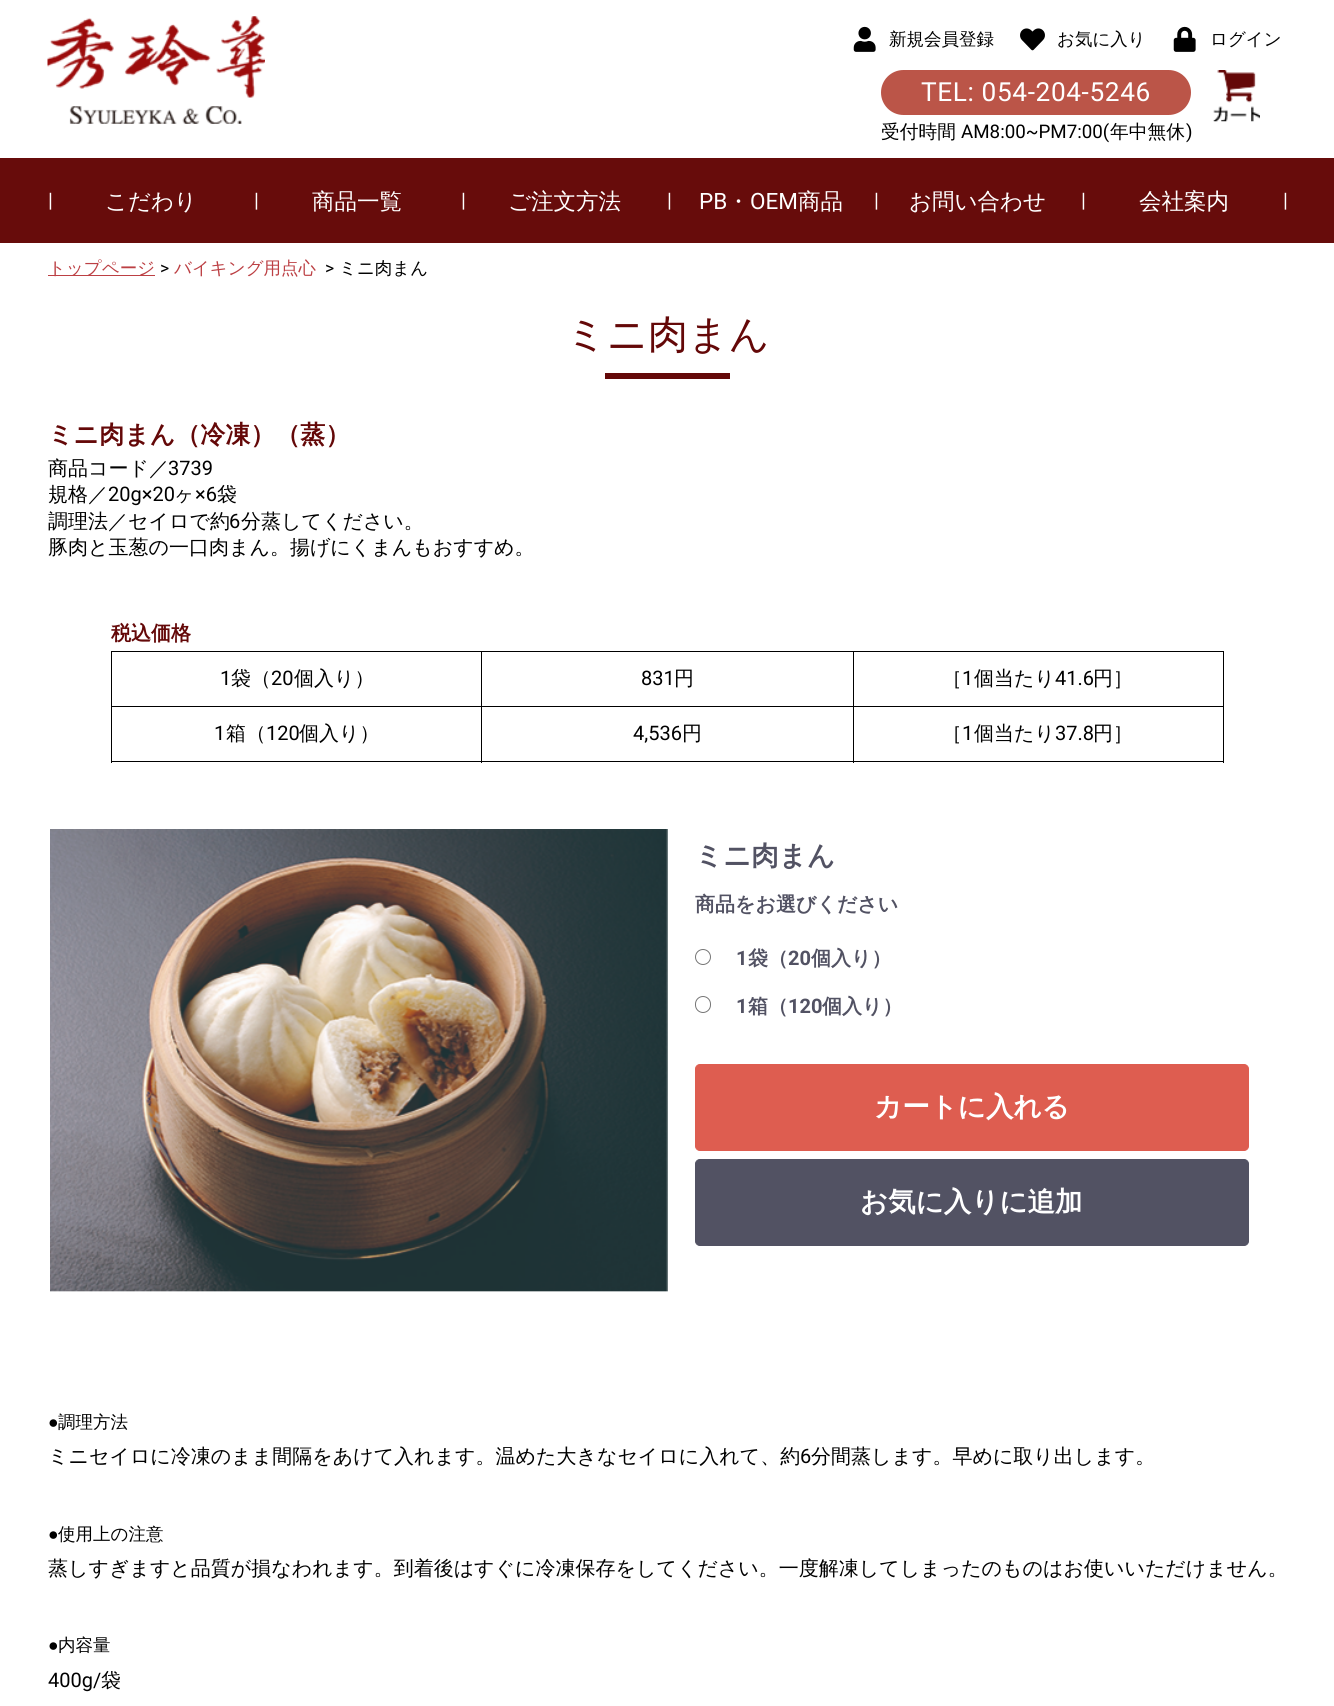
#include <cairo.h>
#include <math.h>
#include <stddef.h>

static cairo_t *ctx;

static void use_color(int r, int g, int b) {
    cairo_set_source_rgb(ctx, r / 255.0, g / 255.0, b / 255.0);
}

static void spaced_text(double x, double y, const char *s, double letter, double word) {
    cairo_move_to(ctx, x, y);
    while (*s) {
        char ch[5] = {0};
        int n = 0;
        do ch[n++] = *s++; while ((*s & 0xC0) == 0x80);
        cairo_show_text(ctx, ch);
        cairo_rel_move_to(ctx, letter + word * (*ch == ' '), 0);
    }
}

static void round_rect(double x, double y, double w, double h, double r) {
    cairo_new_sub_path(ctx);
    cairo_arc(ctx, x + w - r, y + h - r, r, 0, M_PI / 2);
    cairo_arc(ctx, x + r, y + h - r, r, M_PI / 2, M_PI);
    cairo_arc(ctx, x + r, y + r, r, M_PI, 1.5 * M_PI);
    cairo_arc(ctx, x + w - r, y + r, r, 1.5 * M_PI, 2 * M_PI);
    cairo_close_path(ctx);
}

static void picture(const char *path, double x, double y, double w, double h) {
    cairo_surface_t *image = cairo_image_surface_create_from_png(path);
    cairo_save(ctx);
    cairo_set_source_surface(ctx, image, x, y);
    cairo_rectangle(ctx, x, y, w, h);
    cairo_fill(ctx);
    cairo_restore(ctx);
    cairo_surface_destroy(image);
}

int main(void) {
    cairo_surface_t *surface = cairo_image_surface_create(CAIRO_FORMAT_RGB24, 1334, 1706);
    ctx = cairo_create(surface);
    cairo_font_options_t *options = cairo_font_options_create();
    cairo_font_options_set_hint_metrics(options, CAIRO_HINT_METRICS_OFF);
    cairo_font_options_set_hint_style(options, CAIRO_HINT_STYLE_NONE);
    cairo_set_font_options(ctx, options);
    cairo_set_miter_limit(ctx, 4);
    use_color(255, 255, 255);
    cairo_paint(ctx);
    picture("img1.png", 47, 16, 218, 108);
    picture("img2.png", 853, 26, 23, 26);
    cairo_select_font_face(ctx, "WenQuanYi Zen Hei Medium", CAIRO_FONT_SLANT_NORMAL, CAIRO_FONT_WEIGHT_NORMAL);
    cairo_set_font_size(ctx, 17.5);
    use_color(0, 0, 0);
    cairo_move_to(ctx, 889, 45);
    cairo_show_text(ctx, "新規会員登録");
    picture("img3.png", 1020, 28, 25, 23);
    cairo_move_to(ctx, 1057, 45);
    cairo_show_text(ctx, "お気に入り");
    picture("img4.png", 1173, 26, 23, 26);
    cairo_move_to(ctx, 1210, 45);
    cairo_show_text(ctx, "ログイン");
    use_color(187, 85, 72);
    round_rect(881, 70, 310, 45, 22.5);
    cairo_fill(ctx);
    cairo_select_font_face(ctx, "Roboto", CAIRO_FONT_SLANT_NORMAL, CAIRO_FONT_WEIGHT_NORMAL);
    cairo_set_font_size(ctx, 26.25);
    use_color(255, 255, 255);
    spaced_text(921, 101, "TEL: 054-204-5246", 0.6, 0);
    cairo_select_font_face(ctx, "WenQuanYi Zen Hei Medium", CAIRO_FONT_SLANT_NORMAL, CAIRO_FONT_WEIGHT_NORMAL);
    cairo_set_font_size(ctx, 18.75);
    use_color(0, 0, 0);
    cairo_move_to(ctx, 881, 138);
    cairo_show_text(ctx, "受付時間");
    cairo_select_font_face(ctx, "Roboto", CAIRO_FONT_SLANT_NORMAL, CAIRO_FONT_WEIGHT_NORMAL);
    cairo_move_to(ctx, 961, 138);
    cairo_show_text(ctx, "AM8:00~PM7:00(");
    cairo_select_font_face(ctx, "WenQuanYi Zen Hei Medium", CAIRO_FONT_SLANT_NORMAL, CAIRO_FONT_WEIGHT_NORMAL);
    cairo_move_to(ctx, 1110, 138);
    cairo_show_text(ctx, "年中無休");
    cairo_select_font_face(ctx, "Roboto", CAIRO_FONT_SLANT_NORMAL, CAIRO_FONT_WEIGHT_NORMAL);
    cairo_move_to(ctx, 1186, 138);
    cairo_show_text(ctx, ")");
    picture("img5.png", 1213, 70, 47, 52);
    use_color(103, 12, 11);
    cairo_rectangle(ctx, 0, 158, 1334, 85);
    cairo_fill(ctx);
    cairo_set_font_size(ctx, 20);
    use_color(255, 255, 255);
    cairo_move_to(ctx, 48, 207);
    cairo_show_text(ctx, "|");
    cairo_select_font_face(ctx, "WenQuanYi Zen Hei Medium", CAIRO_FONT_SLANT_NORMAL, CAIRO_FONT_WEIGHT_NORMAL);
    cairo_set_font_size(ctx, 22.5);
    cairo_move_to(ctx, 105, 209);
    cairo_show_text(ctx, "こだわり");
    cairo_select_font_face(ctx, "Roboto", CAIRO_FONT_SLANT_NORMAL, CAIRO_FONT_WEIGHT_NORMAL);
    cairo_set_font_size(ctx, 20);
    cairo_move_to(ctx, 254, 207);
    cairo_show_text(ctx, "|");
    cairo_select_font_face(ctx, "WenQuanYi Zen Hei Medium", CAIRO_FONT_SLANT_NORMAL, CAIRO_FONT_WEIGHT_NORMAL);
    cairo_set_font_size(ctx, 22.5);
    cairo_move_to(ctx, 312, 209);
    cairo_show_text(ctx, "商品一覧");
    cairo_select_font_face(ctx, "Roboto", CAIRO_FONT_SLANT_NORMAL, CAIRO_FONT_WEIGHT_NORMAL);
    cairo_set_font_size(ctx, 20);
    cairo_move_to(ctx, 461, 207);
    cairo_show_text(ctx, "|");
    cairo_select_font_face(ctx, "WenQuanYi Zen Hei Medium", CAIRO_FONT_SLANT_NORMAL, CAIRO_FONT_WEIGHT_NORMAL);
    cairo_set_font_size(ctx, 22.5);
    cairo_move_to(ctx, 508, 209);
    cairo_show_text(ctx, "ご注文方法");
    cairo_select_font_face(ctx, "Roboto", CAIRO_FONT_SLANT_NORMAL, CAIRO_FONT_WEIGHT_NORMAL);
    cairo_set_font_size(ctx, 20);
    cairo_move_to(ctx, 667, 207);
    cairo_show_text(ctx, "|");
    cairo_set_font_size(ctx, 22.5);
    cairo_move_to(ctx, 699, 209);
    cairo_show_text(ctx, "PB");
    cairo_select_font_face(ctx, "WenQuanYi Zen Hei Medium", CAIRO_FONT_SLANT_NORMAL, CAIRO_FONT_WEIGHT_NORMAL);
    cairo_move_to(ctx, 727, 209);
    cairo_show_text(ctx, "・");
    cairo_select_font_face(ctx, "Roboto", CAIRO_FONT_SLANT_NORMAL, CAIRO_FONT_WEIGHT_NORMAL);
    cairo_move_to(ctx, 750, 209);
    cairo_show_text(ctx, "OEM");
    cairo_select_font_face(ctx, "WenQuanYi Zen Hei Medium", CAIRO_FONT_SLANT_NORMAL, CAIRO_FONT_WEIGHT_NORMAL);
    cairo_move_to(ctx, 798, 209);
    cairo_show_text(ctx, "商品");
    cairo_select_font_face(ctx, "Roboto", CAIRO_FONT_SLANT_NORMAL, CAIRO_FONT_WEIGHT_NORMAL);
    cairo_set_font_size(ctx, 20);
    cairo_move_to(ctx, 874, 207);
    cairo_show_text(ctx, "|");
    cairo_select_font_face(ctx, "WenQuanYi Zen Hei Medium", CAIRO_FONT_SLANT_NORMAL, CAIRO_FONT_WEIGHT_NORMAL);
    cairo_set_font_size(ctx, 22.5);
    cairo_move_to(ctx, 909, 209);
    cairo_show_text(ctx, "お問い合わせ");
    cairo_select_font_face(ctx, "Roboto", CAIRO_FONT_SLANT_NORMAL, CAIRO_FONT_WEIGHT_NORMAL);
    cairo_set_font_size(ctx, 20);
    cairo_move_to(ctx, 1081, 207);
    cairo_show_text(ctx, "|");
    cairo_select_font_face(ctx, "WenQuanYi Zen Hei Medium", CAIRO_FONT_SLANT_NORMAL, CAIRO_FONT_WEIGHT_NORMAL);
    cairo_set_font_size(ctx, 22.5);
    cairo_move_to(ctx, 1139, 209);
    cairo_show_text(ctx, "会社案内");
    cairo_select_font_face(ctx, "Roboto", CAIRO_FONT_SLANT_NORMAL, CAIRO_FONT_WEIGHT_NORMAL);
    cairo_set_font_size(ctx, 20);
    cairo_move_to(ctx, 1283, 207);
    cairo_show_text(ctx, "|");
    use_color(188, 64, 68);
    cairo_rectangle(ctx, 48, 275, 107, 1);
    cairo_fill(ctx);
    cairo_select_font_face(ctx, "WenQuanYi Zen Hei Medium", CAIRO_FONT_SLANT_NORMAL, CAIRO_FONT_WEIGHT_NORMAL);
    cairo_set_font_size(ctx, 17.5);
    cairo_move_to(ctx, 48, 274);
    cairo_show_text(ctx, "トップページ");
    cairo_select_font_face(ctx, "Roboto", CAIRO_FONT_SLANT_NORMAL, CAIRO_FONT_WEIGHT_NORMAL);
    use_color(0, 0, 0);
    cairo_move_to(ctx, 160, 274);
    cairo_show_text(ctx, ">");
    cairo_select_font_face(ctx, "WenQuanYi Zen Hei Medium", CAIRO_FONT_SLANT_NORMAL, CAIRO_FONT_WEIGHT_NORMAL);
    use_color(188, 64, 68);
    cairo_move_to(ctx, 174, 274);
    cairo_show_text(ctx, "バイキング用点心");
    cairo_select_font_face(ctx, "Roboto", CAIRO_FONT_SLANT_NORMAL, CAIRO_FONT_WEIGHT_NORMAL);
    use_color(0, 0, 0);
    cairo_move_to(ctx, 325, 274);
    cairo_show_text(ctx, ">");
    cairo_select_font_face(ctx, "WenQuanYi Zen Hei Medium", CAIRO_FONT_SLANT_NORMAL, CAIRO_FONT_WEIGHT_NORMAL);
    cairo_move_to(ctx, 339, 274);
    cairo_show_text(ctx, "ミニ肉まん");
    cairo_set_font_size(ctx, 40);
    use_color(100, 8, 8);
    cairo_move_to(ctx, 566, 348);
    cairo_show_text(ctx, "ミニ肉まん");
    cairo_rectangle(ctx, 605, 373, 125, 6);
    cairo_fill(ctx);
    cairo_select_font_face(ctx, "WenQuanYi Zen Hei", CAIRO_FONT_SLANT_NORMAL, CAIRO_FONT_WEIGHT_BOLD);
    cairo_set_font_size(ctx, 25);
    cairo_move_to(ctx, 48, 443);
    cairo_show_text(ctx, "ミニ肉まん（冷凍）（蒸）");
    cairo_select_font_face(ctx, "WenQuanYi Zen Hei Medium", CAIRO_FONT_SLANT_NORMAL, CAIRO_FONT_WEIGHT_NORMAL);
    cairo_set_font_size(ctx, 20);
    use_color(0, 0, 0);
    cairo_move_to(ctx, 48, 475);
    cairo_show_text(ctx, "商品コード／");
    cairo_select_font_face(ctx, "Roboto", CAIRO_FONT_SLANT_NORMAL, CAIRO_FONT_WEIGHT_NORMAL);
    cairo_move_to(ctx, 168, 475);
    cairo_show_text(ctx, "3739");
    cairo_select_font_face(ctx, "WenQuanYi Zen Hei Medium", CAIRO_FONT_SLANT_NORMAL, CAIRO_FONT_WEIGHT_NORMAL);
    cairo_move_to(ctx, 48, 501);
    cairo_show_text(ctx, "規格／");
    cairo_select_font_face(ctx, "Roboto", CAIRO_FONT_SLANT_NORMAL, CAIRO_FONT_WEIGHT_NORMAL);
    cairo_move_to(ctx, 108, 501);
    cairo_show_text(ctx, "20g×20");
    cairo_select_font_face(ctx, "WenQuanYi Zen Hei Medium", CAIRO_FONT_SLANT_NORMAL, CAIRO_FONT_WEIGHT_NORMAL);
    cairo_move_to(ctx, 174, 501);
    cairo_show_text(ctx, "ヶ");
    cairo_select_font_face(ctx, "Roboto", CAIRO_FONT_SLANT_NORMAL, CAIRO_FONT_WEIGHT_NORMAL);
    cairo_move_to(ctx, 195, 501);
    cairo_show_text(ctx, "×6");
    cairo_select_font_face(ctx, "WenQuanYi Zen Hei Medium", CAIRO_FONT_SLANT_NORMAL, CAIRO_FONT_WEIGHT_NORMAL);
    cairo_move_to(ctx, 217, 501);
    cairo_show_text(ctx, "袋");
    cairo_move_to(ctx, 48, 528);
    cairo_show_text(ctx, "調理法／セイロで約");
    cairo_select_font_face(ctx, "Roboto", CAIRO_FONT_SLANT_NORMAL, CAIRO_FONT_WEIGHT_NORMAL);
    cairo_move_to(ctx, 229, 528);
    cairo_show_text(ctx, "6");
    cairo_select_font_face(ctx, "WenQuanYi Zen Hei Medium", CAIRO_FONT_SLANT_NORMAL, CAIRO_FONT_WEIGHT_NORMAL);
    cairo_move_to(ctx, 241, 528);
    cairo_show_text(ctx, "分蒸してください。");
    cairo_move_to(ctx, 48, 554);
    cairo_show_text(ctx, "豚肉と玉葱の一口肉まん。揚げにくまんもおすすめ。");
    cairo_select_font_face(ctx, "WenQuanYi Zen Hei", CAIRO_FONT_SLANT_NORMAL, CAIRO_FONT_WEIGHT_BOLD);
    use_color(100, 8, 8);
    cairo_move_to(ctx, 111, 640);
    cairo_show_text(ctx, "税込価格");
    use_color(0, 0, 0);
    cairo_rectangle(ctx, 853, 651, 371, 1);
    cairo_fill(ctx);
    cairo_rectangle(ctx, 853, 706, 371, 1);
    cairo_fill(ctx);
    cairo_rectangle(ctx, 1223, 706, 1, 57);
    cairo_fill(ctx);
    cairo_rectangle(ctx, 853, 761, 371, 1);
    cairo_fill(ctx);
    cairo_rectangle(ctx, 853, 706, 1, 57);
    cairo_fill(ctx);
    cairo_rectangle(ctx, 481, 706, 373, 1);
    cairo_fill(ctx);
    cairo_rectangle(ctx, 853, 651, 1, 57);
    cairo_fill(ctx);
    cairo_rectangle(ctx, 481, 651, 373, 1);
    cairo_fill(ctx);
    cairo_rectangle(ctx, 481, 761, 373, 1);
    cairo_fill(ctx);
    cairo_rectangle(ctx, 481, 706, 1, 57);
    cairo_fill(ctx);
    cairo_rectangle(ctx, 111, 706, 372, 1);
    cairo_fill(ctx);
    cairo_rectangle(ctx, 481, 651, 1, 57);
    cairo_fill(ctx);
    cairo_rectangle(ctx, 111, 651, 372, 1);
    cairo_fill(ctx);
    cairo_rectangle(ctx, 111, 761, 372, 1);
    cairo_fill(ctx);
    cairo_rectangle(ctx, 111, 706, 1, 57);
    cairo_fill(ctx);
    cairo_rectangle(ctx, 111, 651, 1, 57);
    cairo_fill(ctx);
    cairo_select_font_face(ctx, "Roboto", CAIRO_FONT_SLANT_NORMAL, CAIRO_FONT_WEIGHT_NORMAL);
    cairo_move_to(ctx, 220, 685);
    cairo_show_text(ctx, "1");
    cairo_select_font_face(ctx, "WenQuanYi Zen Hei Medium", CAIRO_FONT_SLANT_NORMAL, CAIRO_FONT_WEIGHT_NORMAL);
    cairo_move_to(ctx, 231, 685);
    cairo_show_text(ctx, "袋（");
    cairo_select_font_face(ctx, "Roboto", CAIRO_FONT_SLANT_NORMAL, CAIRO_FONT_WEIGHT_NORMAL);
    cairo_move_to(ctx, 271, 685);
    cairo_show_text(ctx, "20");
    cairo_select_font_face(ctx, "WenQuanYi Zen Hei Medium", CAIRO_FONT_SLANT_NORMAL, CAIRO_FONT_WEIGHT_NORMAL);
    cairo_move_to(ctx, 294, 685);
    cairo_show_text(ctx, "個入り）");
    cairo_select_font_face(ctx, "Roboto", CAIRO_FONT_SLANT_NORMAL, CAIRO_FONT_WEIGHT_NORMAL);
    cairo_move_to(ctx, 641, 685);
    cairo_show_text(ctx, "831");
    cairo_select_font_face(ctx, "WenQuanYi Zen Hei Medium", CAIRO_FONT_SLANT_NORMAL, CAIRO_FONT_WEIGHT_NORMAL);
    cairo_move_to(ctx, 674, 685);
    cairo_show_text(ctx, "円");
    cairo_rectangle(ctx, 1223, 651, 1, 57);
    cairo_fill(ctx);
    cairo_move_to(ctx, 942, 685);
    cairo_show_text(ctx, "［");
    cairo_select_font_face(ctx, "Roboto", CAIRO_FONT_SLANT_NORMAL, CAIRO_FONT_WEIGHT_NORMAL);
    cairo_move_to(ctx, 962, 685);
    cairo_show_text(ctx, "1");
    cairo_select_font_face(ctx, "WenQuanYi Zen Hei Medium", CAIRO_FONT_SLANT_NORMAL, CAIRO_FONT_WEIGHT_NORMAL);
    cairo_move_to(ctx, 974, 685);
    cairo_show_text(ctx, "個当たり");
    cairo_select_font_face(ctx, "Roboto", CAIRO_FONT_SLANT_NORMAL, CAIRO_FONT_WEIGHT_NORMAL);
    cairo_move_to(ctx, 1055, 685);
    cairo_show_text(ctx, "41.6");
    cairo_select_font_face(ctx, "WenQuanYi Zen Hei Medium", CAIRO_FONT_SLANT_NORMAL, CAIRO_FONT_WEIGHT_NORMAL);
    cairo_move_to(ctx, 1093, 685);
    cairo_show_text(ctx, "円］");
    cairo_select_font_face(ctx, "Roboto", CAIRO_FONT_SLANT_NORMAL, CAIRO_FONT_WEIGHT_NORMAL);
    cairo_move_to(ctx, 214, 740);
    cairo_show_text(ctx, "1");
    cairo_select_font_face(ctx, "WenQuanYi Zen Hei Medium", CAIRO_FONT_SLANT_NORMAL, CAIRO_FONT_WEIGHT_NORMAL);
    cairo_move_to(ctx, 226, 740);
    cairo_show_text(ctx, "箱（");
    cairo_select_font_face(ctx, "Roboto", CAIRO_FONT_SLANT_NORMAL, CAIRO_FONT_WEIGHT_NORMAL);
    cairo_move_to(ctx, 266, 740);
    cairo_show_text(ctx, "120");
    cairo_select_font_face(ctx, "WenQuanYi Zen Hei Medium", CAIRO_FONT_SLANT_NORMAL, CAIRO_FONT_WEIGHT_NORMAL);
    cairo_move_to(ctx, 299, 740);
    cairo_show_text(ctx, "個入り）");
    cairo_select_font_face(ctx, "Roboto", CAIRO_FONT_SLANT_NORMAL, CAIRO_FONT_WEIGHT_NORMAL);
    cairo_move_to(ctx, 633, 740);
    cairo_show_text(ctx, "4,536");
    cairo_select_font_face(ctx, "WenQuanYi Zen Hei Medium", CAIRO_FONT_SLANT_NORMAL, CAIRO_FONT_WEIGHT_NORMAL);
    cairo_move_to(ctx, 682, 740);
    cairo_show_text(ctx, "円");
    cairo_move_to(ctx, 942, 740);
    cairo_show_text(ctx, "［");
    cairo_select_font_face(ctx, "Roboto", CAIRO_FONT_SLANT_NORMAL, CAIRO_FONT_WEIGHT_NORMAL);
    cairo_move_to(ctx, 962, 740);
    cairo_show_text(ctx, "1");
    cairo_select_font_face(ctx, "WenQuanYi Zen Hei Medium", CAIRO_FONT_SLANT_NORMAL, CAIRO_FONT_WEIGHT_NORMAL);
    cairo_move_to(ctx, 974, 740);
    cairo_show_text(ctx, "個当たり");
    cairo_select_font_face(ctx, "Roboto", CAIRO_FONT_SLANT_NORMAL, CAIRO_FONT_WEIGHT_NORMAL);
    cairo_move_to(ctx, 1055, 740);
    cairo_show_text(ctx, "37.8");
    cairo_select_font_face(ctx, "WenQuanYi Zen Hei Medium", CAIRO_FONT_SLANT_NORMAL, CAIRO_FONT_WEIGHT_NORMAL);
    cairo_move_to(ctx, 1093, 740);
    cairo_show_text(ctx, "円］");
    picture("img6.png", 50, 829, 618, 463);
    cairo_select_font_face(ctx, "WenQuanYi Zen Hei", CAIRO_FONT_SLANT_NORMAL, CAIRO_FONT_WEIGHT_BOLD);
    cairo_set_font_size(ctx, 27.5);
    use_color(82, 82, 99);
    cairo_move_to(ctx, 695, 865);
    cairo_show_text(ctx, "ミニ肉まん");
    cairo_set_font_size(ctx, 20);
    cairo_move_to(ctx, 695, 911);
    cairo_show_text(ctx, "商品をお選びください");
    cairo_new_path(ctx);
    cairo_arc(ctx, 703, 957, 7.5, 0, 2 * M_PI);
    use_color(118, 118, 118);
    cairo_set_line_width(ctx, 1);
    cairo_stroke(ctx);
    cairo_select_font_face(ctx, "Roboto", CAIRO_FONT_SLANT_NORMAL, CAIRO_FONT_WEIGHT_BOLD);
    use_color(82, 82, 99);
    cairo_move_to(ctx, 736, 965);
    cairo_show_text(ctx, "1");
    cairo_select_font_face(ctx, "WenQuanYi Zen Hei", CAIRO_FONT_SLANT_NORMAL, CAIRO_FONT_WEIGHT_BOLD);
    cairo_move_to(ctx, 748, 965);
    cairo_show_text(ctx, "袋（");
    cairo_select_font_face(ctx, "Roboto", CAIRO_FONT_SLANT_NORMAL, CAIRO_FONT_WEIGHT_BOLD);
    cairo_move_to(ctx, 788, 965);
    cairo_show_text(ctx, "20");
    cairo_select_font_face(ctx, "WenQuanYi Zen Hei", CAIRO_FONT_SLANT_NORMAL, CAIRO_FONT_WEIGHT_BOLD);
    cairo_move_to(ctx, 811, 965);
    cairo_show_text(ctx, "個入り）");
    round_rect(695.5, 996.5, 15, 16, 7.5);
    use_color(118, 118, 118);
    cairo_stroke(ctx);
    cairo_select_font_face(ctx, "Roboto", CAIRO_FONT_SLANT_NORMAL, CAIRO_FONT_WEIGHT_BOLD);
    use_color(82, 82, 99);
    cairo_move_to(ctx, 736, 1013);
    cairo_show_text(ctx, "1");
    cairo_select_font_face(ctx, "WenQuanYi Zen Hei", CAIRO_FONT_SLANT_NORMAL, CAIRO_FONT_WEIGHT_BOLD);
    cairo_move_to(ctx, 748, 1013);
    cairo_show_text(ctx, "箱（");
    cairo_select_font_face(ctx, "Roboto", CAIRO_FONT_SLANT_NORMAL, CAIRO_FONT_WEIGHT_BOLD);
    cairo_move_to(ctx, 788, 1013);
    cairo_show_text(ctx, "120");
    cairo_select_font_face(ctx, "WenQuanYi Zen Hei", CAIRO_FONT_SLANT_NORMAL, CAIRO_FONT_WEIGHT_BOLD);
    cairo_move_to(ctx, 822, 1013);
    cairo_show_text(ctx, "個入り）");
    use_color(222, 93, 80);
    round_rect(695.5, 1064.5, 553, 86, 4.5);
    cairo_fill_preserve(ctx);
    cairo_stroke(ctx);
    cairo_set_font_size(ctx, 27.5);
    use_color(255, 255, 255);
    cairo_move_to(ctx, 874, 1116);
    cairo_show_text(ctx, "カートに入れる");
    use_color(82, 82, 99);
    round_rect(695.5, 1159.5, 553, 86, 4.5);
    cairo_fill_preserve(ctx);
    cairo_stroke(ctx);
    use_color(255, 255, 255);
    cairo_move_to(ctx, 860, 1211);
    cairo_show_text(ctx, "お気に入りに追加");
    cairo_select_font_face(ctx, "Liberation Sans", CAIRO_FONT_SLANT_NORMAL, CAIRO_FONT_WEIGHT_NORMAL);
    cairo_set_font_size(ctx, 17.5);
    use_color(0, 0, 0);
    cairo_move_to(ctx, 48, 1428);
    cairo_show_text(ctx, "●");
    cairo_select_font_face(ctx, "WenQuanYi Zen Hei Medium", CAIRO_FONT_SLANT_NORMAL, CAIRO_FONT_WEIGHT_NORMAL);
    cairo_move_to(ctx, 58, 1428);
    cairo_show_text(ctx, "調理方法");
    cairo_set_font_size(ctx, 20);
    cairo_move_to(ctx, 48, 1463);
    cairo_show_text(ctx, "ミニセイロに冷凍のまま間隔をあけて入れます。温めた大きなセイロに入れて、約");
    cairo_select_font_face(ctx, "Roboto", CAIRO_FONT_SLANT_NORMAL, CAIRO_FONT_WEIGHT_NORMAL);
    cairo_move_to(ctx, 800, 1463);
    cairo_show_text(ctx, "6");
    cairo_select_font_face(ctx, "WenQuanYi Zen Hei Medium", CAIRO_FONT_SLANT_NORMAL, CAIRO_FONT_WEIGHT_NORMAL);
    cairo_move_to(ctx, 811, 1463);
    cairo_show_text(ctx, "分間蒸します。早めに取り出します。");
    cairo_select_font_face(ctx, "Liberation Sans", CAIRO_FONT_SLANT_NORMAL, CAIRO_FONT_WEIGHT_NORMAL);
    cairo_set_font_size(ctx, 17.5);
    cairo_move_to(ctx, 48, 1540);
    cairo_show_text(ctx, "●");
    cairo_select_font_face(ctx, "WenQuanYi Zen Hei Medium", CAIRO_FONT_SLANT_NORMAL, CAIRO_FONT_WEIGHT_NORMAL);
    cairo_move_to(ctx, 58, 1540);
    cairo_show_text(ctx, "使用上の注意");
    cairo_set_font_size(ctx, 20);
    cairo_move_to(ctx, 48, 1575);
    cairo_show_text(ctx, "蒸しすぎますと品質が損なわれます。到着後はすぐに冷凍保存をしてください。一度解凍してしまったのものはお使いいただけません。");
    cairo_select_font_face(ctx, "Liberation Sans", CAIRO_FONT_SLANT_NORMAL, CAIRO_FONT_WEIGHT_NORMAL);
    cairo_set_font_size(ctx, 17.5);
    cairo_move_to(ctx, 48, 1651);
    cairo_show_text(ctx, "●");
    cairo_select_font_face(ctx, "WenQuanYi Zen Hei Medium", CAIRO_FONT_SLANT_NORMAL, CAIRO_FONT_WEIGHT_NORMAL);
    cairo_move_to(ctx, 58, 1651);
    cairo_show_text(ctx, "内容量");
    cairo_select_font_face(ctx, "Roboto", CAIRO_FONT_SLANT_NORMAL, CAIRO_FONT_WEIGHT_NORMAL);
    cairo_set_font_size(ctx, 20);
    cairo_move_to(ctx, 48, 1687);
    cairo_show_text(ctx, "400g/");
    cairo_select_font_face(ctx, "WenQuanYi Zen Hei Medium", CAIRO_FONT_SLANT_NORMAL, CAIRO_FONT_WEIGHT_NORMAL);
    cairo_move_to(ctx, 101, 1687);
    cairo_show_text(ctx, "袋");
    cairo_surface_write_to_png(surface, "result.png");
    cairo_font_options_destroy(options);
    cairo_destroy(ctx);
    cairo_surface_destroy(surface);
    return 0;
}
